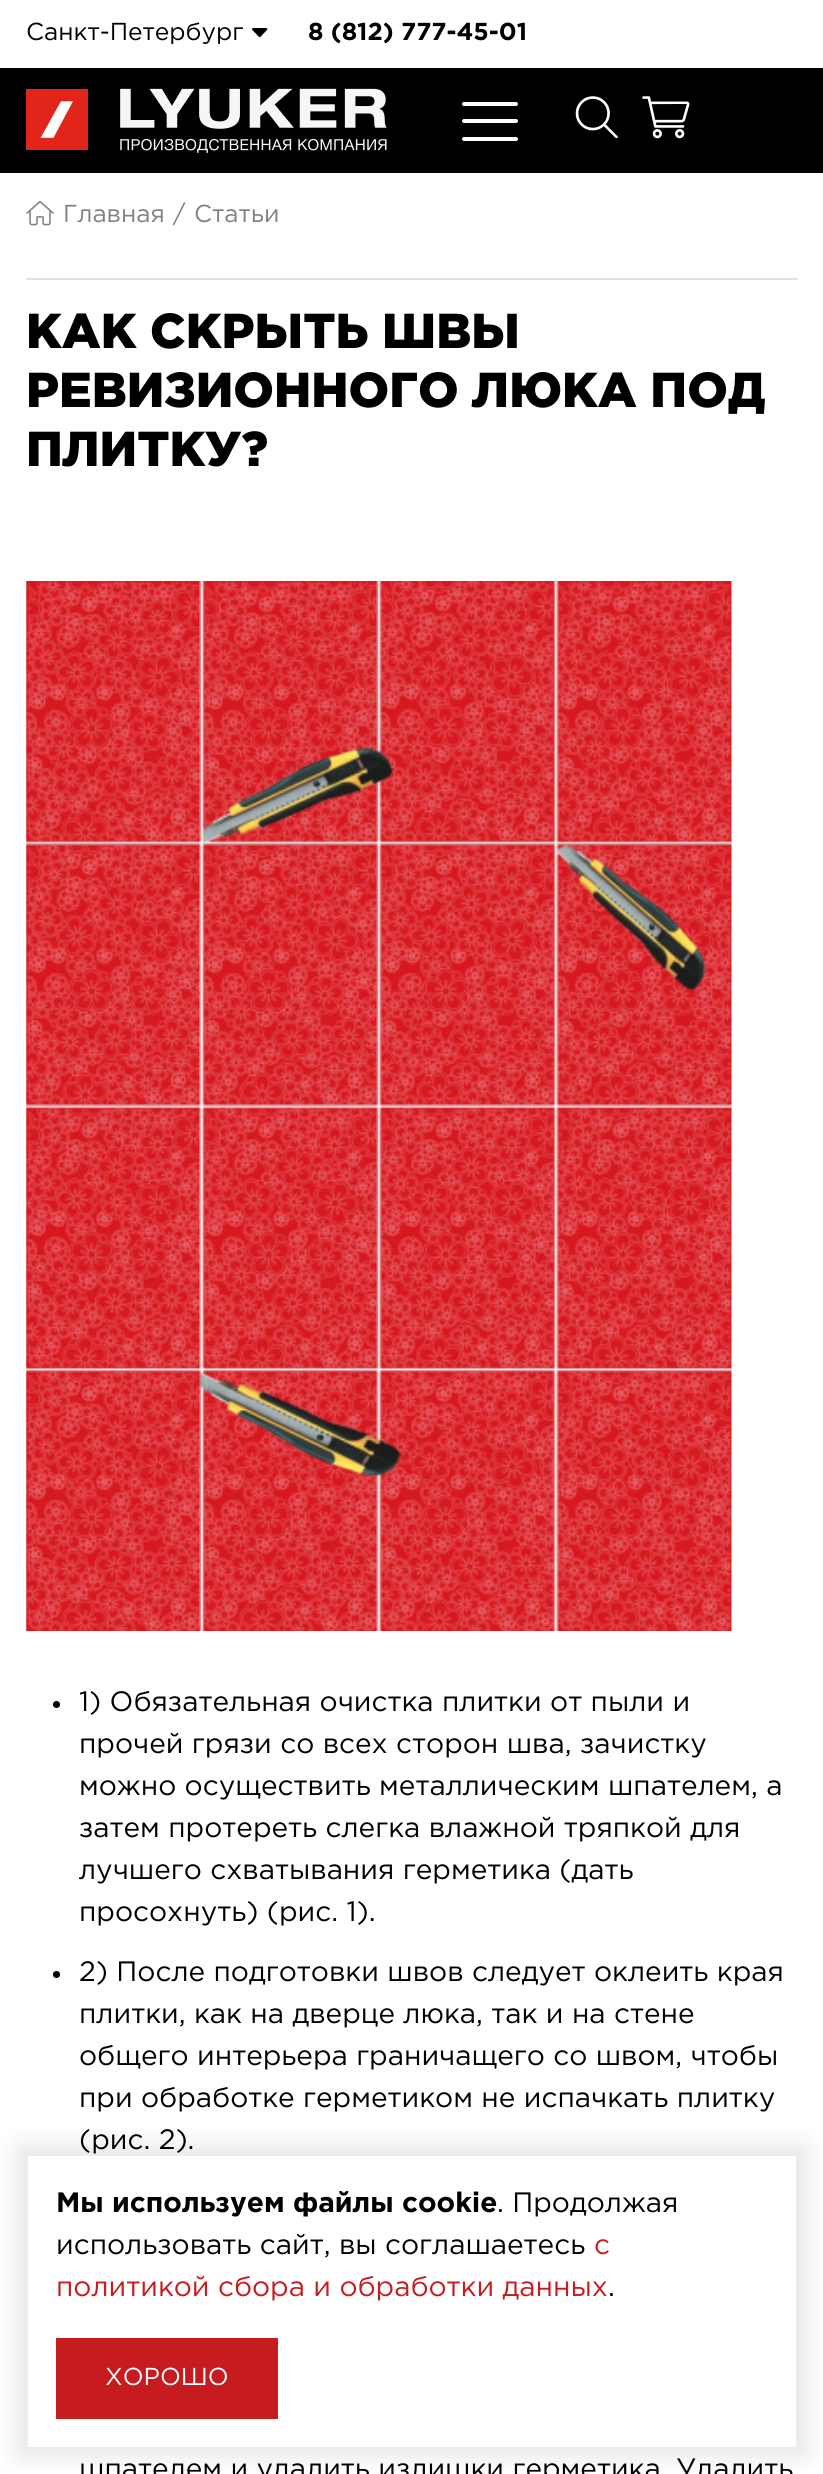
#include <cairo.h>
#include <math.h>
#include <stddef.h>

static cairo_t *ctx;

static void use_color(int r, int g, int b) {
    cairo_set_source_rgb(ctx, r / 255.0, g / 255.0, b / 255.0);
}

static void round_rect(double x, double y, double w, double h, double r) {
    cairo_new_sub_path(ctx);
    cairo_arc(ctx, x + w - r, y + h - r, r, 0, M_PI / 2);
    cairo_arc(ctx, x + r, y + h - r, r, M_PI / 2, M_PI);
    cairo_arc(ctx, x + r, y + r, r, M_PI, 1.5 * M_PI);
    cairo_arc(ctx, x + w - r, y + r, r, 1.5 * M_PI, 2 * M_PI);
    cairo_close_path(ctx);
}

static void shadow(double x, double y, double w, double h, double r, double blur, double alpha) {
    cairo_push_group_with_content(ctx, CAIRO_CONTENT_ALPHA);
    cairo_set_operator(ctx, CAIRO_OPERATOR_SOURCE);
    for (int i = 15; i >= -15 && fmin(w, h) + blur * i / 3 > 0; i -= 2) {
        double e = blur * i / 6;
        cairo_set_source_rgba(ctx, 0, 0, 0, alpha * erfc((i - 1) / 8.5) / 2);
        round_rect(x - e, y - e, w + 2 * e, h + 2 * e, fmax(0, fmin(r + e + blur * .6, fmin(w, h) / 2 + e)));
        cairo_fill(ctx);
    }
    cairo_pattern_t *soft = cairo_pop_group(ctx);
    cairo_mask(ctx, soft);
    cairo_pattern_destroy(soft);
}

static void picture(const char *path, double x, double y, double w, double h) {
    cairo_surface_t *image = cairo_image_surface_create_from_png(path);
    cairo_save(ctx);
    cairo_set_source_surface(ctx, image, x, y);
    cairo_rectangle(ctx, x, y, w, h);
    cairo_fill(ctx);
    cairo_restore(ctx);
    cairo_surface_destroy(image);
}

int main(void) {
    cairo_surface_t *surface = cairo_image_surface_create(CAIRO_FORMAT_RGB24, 823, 2474);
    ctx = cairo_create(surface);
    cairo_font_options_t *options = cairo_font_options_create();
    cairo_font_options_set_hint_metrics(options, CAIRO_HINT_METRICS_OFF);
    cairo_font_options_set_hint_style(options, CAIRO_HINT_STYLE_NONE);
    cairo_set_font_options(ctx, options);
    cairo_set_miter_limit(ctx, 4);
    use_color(255, 255, 255);
    cairo_paint(ctx);
    cairo_select_font_face(ctx, "Gotham", CAIRO_FONT_SLANT_NORMAL, CAIRO_FONT_WEIGHT_NORMAL);
    cairo_set_font_size(ctx, 24.5);
    use_color(0, 0, 0);
    cairo_move_to(ctx, 26, 40);
    cairo_show_text(ctx, "Санкт-Петербург");
    picture("img1.png", 252, 28, 16, 10);
    cairo_select_font_face(ctx, "Gotham", CAIRO_FONT_SLANT_NORMAL, CAIRO_FONT_WEIGHT_BOLD);
    cairo_move_to(ctx, 308, 40);
    cairo_show_text(ctx, "8 (812) 777-45-01");
    cairo_rectangle(ctx, 0, 68, 823, 105);
    cairo_fill(ctx);
    picture("img2.png", 26, 88, 361, 65);
    use_color(255, 255, 255);
    round_rect(462, 102, 56, 4, 2);
    cairo_fill(ctx);
    round_rect(462, 119, 56, 4, 2);
    cairo_fill(ctx);
    round_rect(462, 137, 56, 4, 2);
    cairo_fill(ctx);
    picture("img3.png", 575, 96, 43, 43);
    picture("img4.png", 642, 96, 48, 43);
    use_color(222, 226, 230);
    cairo_rectangle(ctx, 26, 278, 772, 2);
    cairo_fill(ctx);
    picture("img5.png", 26, 200, 28, 26);
    cairo_select_font_face(ctx, "Gotham", CAIRO_FONT_SLANT_NORMAL, CAIRO_FONT_WEIGHT_NORMAL);
    use_color(128, 128, 128);
    cairo_move_to(ctx, 63, 222);
    cairo_show_text(ctx, "Главная");
    cairo_move_to(ctx, 173, 222);
    cairo_show_text(ctx, "/");
    cairo_move_to(ctx, 194, 222);
    cairo_show_text(ctx, "Статьи");
    cairo_select_font_face(ctx, "Gotham Black", CAIRO_FONT_SLANT_NORMAL, CAIRO_FONT_WEIGHT_NORMAL);
    cairo_set_font_size(ctx, 49);
    use_color(0, 0, 0);
    cairo_move_to(ctx, 26, 348);
    cairo_show_text(ctx, "КАК СКРЫТЬ ШВЫ");
    cairo_move_to(ctx, 26, 407);
    cairo_show_text(ctx, "РЕВИЗИОННОГО ЛЮКА ПОД");
    cairo_move_to(ctx, 26, 466);
    cairo_show_text(ctx, "ПЛИТКУ?");
    picture("img6.png", 26, 581, 706, 1050);
    cairo_arc(ctx, 56.5, 1704.5, 3.5, 0, 2 * M_PI);
    cairo_fill(ctx);
    cairo_select_font_face(ctx, "Gotham", CAIRO_FONT_SLANT_NORMAL, CAIRO_FONT_WEIGHT_NORMAL);
    cairo_set_font_size(ctx, 28);
    cairo_move_to(ctx, 79, 1711);
    cairo_show_text(ctx, "1) Обязательная очистка плитки от пыли и");
    cairo_move_to(ctx, 79, 1753);
    cairo_show_text(ctx, "прочей грязи со всех сторон шва, зачистку");
    cairo_move_to(ctx, 79, 1795);
    cairo_show_text(ctx, "можно осуществить металлическим шпателем, а");
    cairo_move_to(ctx, 79, 1837);
    cairo_show_text(ctx, "затем протереть слегка влажной тряпкой для");
    cairo_move_to(ctx, 79, 1879);
    cairo_show_text(ctx, "лучшего схватывания герметика (дать");
    cairo_move_to(ctx, 79, 1921);
    cairo_show_text(ctx, "просохнуть) (рис. 1).");
    cairo_new_path(ctx);
    cairo_arc(ctx, 56.5, 1974.5, 3.5, 0, 2 * M_PI);
    cairo_fill(ctx);
    cairo_move_to(ctx, 79, 1981);
    cairo_show_text(ctx, "2) После подготовки швов следует оклеить края");
    cairo_move_to(ctx, 79, 2023);
    cairo_show_text(ctx, "плитки, как на дверце люка, так и на стене");
    cairo_move_to(ctx, 79, 2065);
    cairo_show_text(ctx, "общего интерьера граничащего со швом, чтобы");
    cairo_move_to(ctx, 79, 2107);
    cairo_show_text(ctx, "при обработке герметиком не испачкать плитку");
    cairo_move_to(ctx, 79, 2149);
    cairo_show_text(ctx, "(рис. 2).");
    cairo_move_to(ctx, 79, 2478);
    cairo_show_text(ctx, "шпателем и удалить излишки герметика. Удалить");
    use_color(0, 0, 0);
    shadow(18, 2146, 789, 311, 0, 12, 0.1);
    use_color(255, 255, 255);
    cairo_rectangle(ctx, 28, 2156, 768, 291);
    cairo_fill(ctx);
    cairo_select_font_face(ctx, "Gotham", CAIRO_FONT_SLANT_NORMAL, CAIRO_FONT_WEIGHT_BOLD);
    use_color(0, 0, 0);
    cairo_move_to(ctx, 56, 2212);
    cairo_show_text(ctx, "Мы используем файлы cookie");
    cairo_select_font_face(ctx, "Gotham", CAIRO_FONT_SLANT_NORMAL, CAIRO_FONT_WEIGHT_NORMAL);
    cairo_move_to(ctx, 497, 2212);
    cairo_show_text(ctx, ". Продолжая");
    cairo_move_to(ctx, 56, 2254);
    cairo_show_text(ctx, "использовать сайт, вы соглашаетесь");
    use_color(198, 27, 31);
    cairo_move_to(ctx, 594, 2254);
    cairo_show_text(ctx, "с");
    cairo_move_to(ctx, 56, 2296);
    cairo_show_text(ctx, "политикой сбора и обработки данных");
    use_color(0, 0, 0);
    cairo_move_to(ctx, 608, 2296);
    cairo_show_text(ctx, ".");
    use_color(198, 27, 31);
    cairo_rectangle(ctx, 56, 2338, 222, 81);
    cairo_fill(ctx);
    cairo_set_font_size(ctx, 24.5);
    use_color(255, 255, 255);
    cairo_move_to(ctx, 105, 2385);
    cairo_show_text(ctx, "ХОРОШО");
    cairo_surface_write_to_png(surface, "result.png");
    cairo_font_options_destroy(options);
    cairo_destroy(ctx);
    cairo_surface_destroy(surface);
    return 0;
}
